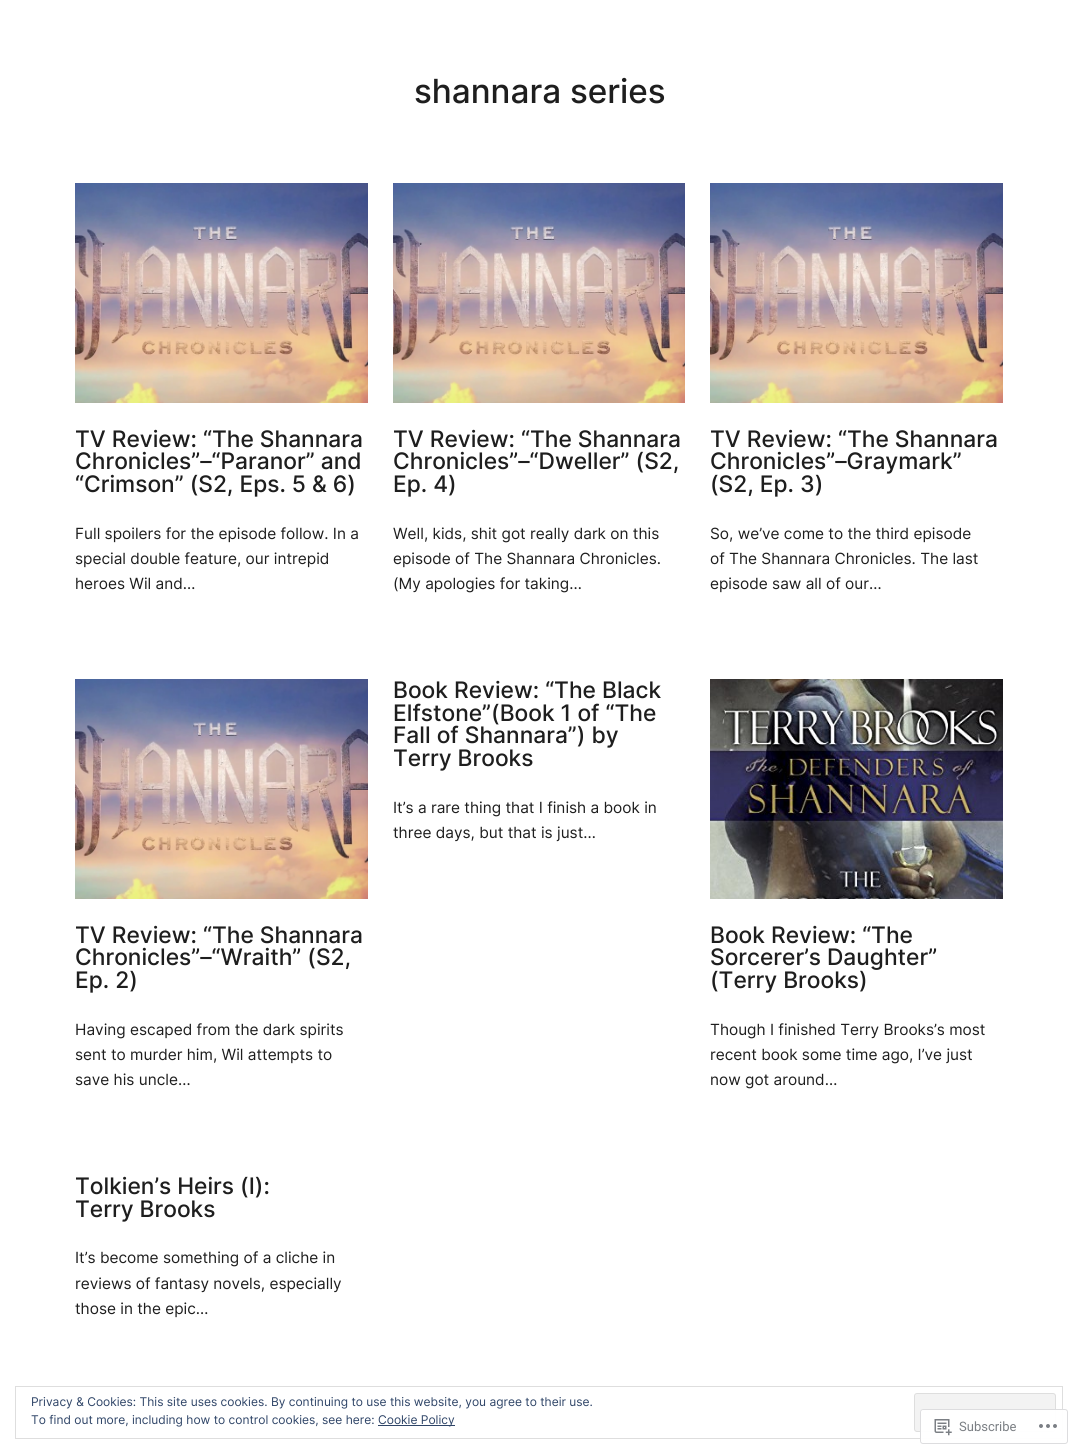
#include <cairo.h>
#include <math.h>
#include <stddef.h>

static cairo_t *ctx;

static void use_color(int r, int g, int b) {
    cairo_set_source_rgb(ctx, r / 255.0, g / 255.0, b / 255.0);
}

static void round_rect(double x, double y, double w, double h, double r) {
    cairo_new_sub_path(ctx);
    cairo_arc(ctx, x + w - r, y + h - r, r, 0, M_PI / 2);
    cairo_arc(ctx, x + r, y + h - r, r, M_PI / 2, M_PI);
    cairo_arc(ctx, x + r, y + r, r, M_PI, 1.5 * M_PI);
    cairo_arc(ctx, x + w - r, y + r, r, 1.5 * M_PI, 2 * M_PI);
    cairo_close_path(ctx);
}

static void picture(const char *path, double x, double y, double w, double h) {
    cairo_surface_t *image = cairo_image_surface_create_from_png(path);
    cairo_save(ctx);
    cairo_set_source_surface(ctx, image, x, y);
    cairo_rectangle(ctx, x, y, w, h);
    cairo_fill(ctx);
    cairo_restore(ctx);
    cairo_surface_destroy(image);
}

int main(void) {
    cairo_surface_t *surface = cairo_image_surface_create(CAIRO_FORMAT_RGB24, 1078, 1454);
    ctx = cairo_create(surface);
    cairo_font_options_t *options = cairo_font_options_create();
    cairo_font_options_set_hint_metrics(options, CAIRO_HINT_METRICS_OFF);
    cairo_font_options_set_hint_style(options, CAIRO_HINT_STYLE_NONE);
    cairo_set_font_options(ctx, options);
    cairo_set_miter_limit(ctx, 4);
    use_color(255, 255, 255);
    cairo_paint(ctx);
    cairo_select_font_face(ctx, "Inter Medium", CAIRO_FONT_SLANT_NORMAL, CAIRO_FONT_WEIGHT_NORMAL);
    cairo_set_font_size(ctx, 33.25);
    use_color(30, 30, 30);
    cairo_move_to(ctx, 414, 103);
    cairo_show_text(ctx, "shannara series");
    picture("img1.png", 75, 183, 293, 220);
    cairo_set_font_size(ctx, 22.75);
    cairo_move_to(ctx, 75, 447);
    cairo_show_text(ctx, "TV Review: “The Shannara");
    cairo_move_to(ctx, 75, 469);
    cairo_show_text(ctx, "Chronicles”–“Paranor” and");
    cairo_move_to(ctx, 75, 492);
    cairo_show_text(ctx, "“Crimson” (S2, Eps. 5 & 6)");
    cairo_select_font_face(ctx, "Inter", CAIRO_FONT_SLANT_NORMAL, CAIRO_FONT_WEIGHT_NORMAL);
    cairo_set_font_size(ctx, 15.4);
    cairo_move_to(ctx, 75, 539);
    cairo_show_text(ctx, "Full spoilers for the episode follow. In a");
    cairo_move_to(ctx, 75, 564);
    cairo_show_text(ctx, "special double feature, our intrepid");
    cairo_move_to(ctx, 75, 589);
    cairo_show_text(ctx, "heroes Wil and…");
    picture("img2.png", 393, 183, 292, 220);
    cairo_select_font_face(ctx, "Inter Medium", CAIRO_FONT_SLANT_NORMAL, CAIRO_FONT_WEIGHT_NORMAL);
    cairo_set_font_size(ctx, 22.75);
    cairo_move_to(ctx, 393, 447);
    cairo_show_text(ctx, "TV Review: “The Shannara");
    cairo_move_to(ctx, 393, 469);
    cairo_show_text(ctx, "Chronicles”–“Dweller” (S2,");
    cairo_move_to(ctx, 393, 492);
    cairo_show_text(ctx, "Ep. 4)");
    cairo_select_font_face(ctx, "Inter", CAIRO_FONT_SLANT_NORMAL, CAIRO_FONT_WEIGHT_NORMAL);
    cairo_set_font_size(ctx, 15.4);
    cairo_move_to(ctx, 393, 539);
    cairo_show_text(ctx, "Well, kids, shit got really dark on this");
    cairo_move_to(ctx, 393, 564);
    cairo_show_text(ctx, "episode of The Shannara Chronicles.");
    cairo_move_to(ctx, 393, 589);
    cairo_show_text(ctx, "(My apologies for taking…");
    picture("img3.png", 710, 183, 293, 220);
    cairo_select_font_face(ctx, "Inter Medium", CAIRO_FONT_SLANT_NORMAL, CAIRO_FONT_WEIGHT_NORMAL);
    cairo_set_font_size(ctx, 22.75);
    cairo_move_to(ctx, 710, 447);
    cairo_show_text(ctx, "TV Review: “The Shannara");
    cairo_move_to(ctx, 710, 469);
    cairo_show_text(ctx, "Chronicles”–Graymark”");
    cairo_move_to(ctx, 710, 492);
    cairo_show_text(ctx, "(S2, Ep. 3)");
    cairo_select_font_face(ctx, "Inter", CAIRO_FONT_SLANT_NORMAL, CAIRO_FONT_WEIGHT_NORMAL);
    cairo_set_font_size(ctx, 15.4);
    cairo_move_to(ctx, 710, 539);
    cairo_show_text(ctx, "So, we’ve come to the third episode");
    cairo_move_to(ctx, 710, 564);
    cairo_show_text(ctx, "of The Shannara Chronicles. The last");
    cairo_move_to(ctx, 710, 589);
    cairo_show_text(ctx, "episode saw all of our…");
    cairo_select_font_face(ctx, "Inter Medium", CAIRO_FONT_SLANT_NORMAL, CAIRO_FONT_WEIGHT_NORMAL);
    cairo_set_font_size(ctx, 22.75);
    cairo_move_to(ctx, 393, 698);
    cairo_show_text(ctx, "Book Review: “The Black");
    cairo_move_to(ctx, 393, 721);
    cairo_show_text(ctx, "Elfstone”(Book 1 of “The");
    cairo_move_to(ctx, 393, 743);
    cairo_show_text(ctx, "Fall of Shannara”) by");
    cairo_move_to(ctx, 393, 766);
    cairo_show_text(ctx, "Terry Brooks");
    cairo_select_font_face(ctx, "Inter", CAIRO_FONT_SLANT_NORMAL, CAIRO_FONT_WEIGHT_NORMAL);
    cairo_set_font_size(ctx, 15.4);
    cairo_move_to(ctx, 393, 813);
    cairo_show_text(ctx, "It’s a rare thing that I finish a book in");
    cairo_move_to(ctx, 393, 838);
    cairo_show_text(ctx, "three days, but that is just…");
    picture("img1.png", 75, 679, 293, 220);
    cairo_select_font_face(ctx, "Inter Medium", CAIRO_FONT_SLANT_NORMAL, CAIRO_FONT_WEIGHT_NORMAL);
    cairo_set_font_size(ctx, 22.75);
    cairo_move_to(ctx, 75, 943);
    cairo_show_text(ctx, "TV Review: “The Shannara");
    cairo_move_to(ctx, 75, 965);
    cairo_show_text(ctx, "Chronicles”–“Wraith” (S2,");
    cairo_move_to(ctx, 75, 988);
    cairo_show_text(ctx, "Ep. 2)");
    cairo_select_font_face(ctx, "Inter", CAIRO_FONT_SLANT_NORMAL, CAIRO_FONT_WEIGHT_NORMAL);
    cairo_set_font_size(ctx, 15.4);
    cairo_move_to(ctx, 75, 1035);
    cairo_show_text(ctx, "Having escaped from the dark spirits");
    cairo_move_to(ctx, 75, 1060);
    cairo_show_text(ctx, "sent to murder him, Wil attempts to");
    cairo_move_to(ctx, 75, 1085);
    cairo_show_text(ctx, "save his uncle…");
    picture("img4.png", 710, 679, 293, 220);
    cairo_select_font_face(ctx, "Inter Medium", CAIRO_FONT_SLANT_NORMAL, CAIRO_FONT_WEIGHT_NORMAL);
    cairo_set_font_size(ctx, 22.75);
    cairo_move_to(ctx, 710, 943);
    cairo_show_text(ctx, "Book Review: “The");
    cairo_move_to(ctx, 710, 965);
    cairo_show_text(ctx, "Sorcerer’s Daughter”");
    cairo_move_to(ctx, 710, 988);
    cairo_show_text(ctx, "(Terry Brooks)");
    cairo_select_font_face(ctx, "Inter", CAIRO_FONT_SLANT_NORMAL, CAIRO_FONT_WEIGHT_NORMAL);
    cairo_set_font_size(ctx, 15.4);
    cairo_move_to(ctx, 710, 1035);
    cairo_show_text(ctx, "Though I finished Terry Brooks’s most");
    cairo_move_to(ctx, 710, 1060);
    cairo_show_text(ctx, "recent book some time ago, I’ve just");
    cairo_move_to(ctx, 710, 1085);
    cairo_show_text(ctx, "now got around…");
    cairo_select_font_face(ctx, "Inter Medium", CAIRO_FONT_SLANT_NORMAL, CAIRO_FONT_WEIGHT_NORMAL);
    cairo_set_font_size(ctx, 22.75);
    cairo_move_to(ctx, 75, 1194);
    cairo_show_text(ctx, "Tolkien’s Heirs (I):");
    cairo_move_to(ctx, 75, 1217);
    cairo_show_text(ctx, "Terry Brooks");
    cairo_select_font_face(ctx, "Inter", CAIRO_FONT_SLANT_NORMAL, CAIRO_FONT_WEIGHT_NORMAL);
    cairo_set_font_size(ctx, 15.4);
    cairo_move_to(ctx, 75, 1263);
    cairo_show_text(ctx, "It’s become something of a cliche in");
    cairo_move_to(ctx, 75, 1289);
    cairo_show_text(ctx, "reviews of fantasy novels, especially");
    cairo_move_to(ctx, 75, 1314);
    cairo_show_text(ctx, "those in the epic…");
    cairo_rectangle(ctx, 15.5, 1386.5, 1047, 52);
    use_color(222, 222, 222);
    cairo_set_line_width(ctx, 1);
    cairo_stroke(ctx);
    cairo_set_font_size(ctx, 12);
    use_color(46, 68, 103);
    cairo_move_to(ctx, 31, 1406);
    cairo_show_text(ctx, "Privacy & Cookies: This site uses cookies. By continuing to use this website, you agree to their use.");
    use_color(243, 243, 243);
    round_rect(914.5, 1393.5, 141, 38, 2.5);
    cairo_fill_preserve(ctx);
    use_color(222, 222, 222);
    cairo_stroke(ctx);
    use_color(46, 68, 103);
    cairo_move_to(ctx, 31, 1424);
    cairo_show_text(ctx, "To find out more, including how to control cookies, see here:");
    cairo_rectangle(ctx, 378, 1425, 77, 1);
    cairo_fill(ctx);
    cairo_move_to(ctx, 378, 1424);
    cairo_show_text(ctx, "Cookie Policy");
    cairo_set_source_rgba(ctx, 1, 1, 1, 0.98);
    round_rect(920, 1409, 148, 35, 3);
    cairo_fill(ctx);
    round_rect(920.5, 1409.5, 147, 34, 2.5);
    cairo_set_source_rgba(ctx, 0.863, 0.863, 0.871, 0.98);
    cairo_stroke(ctx);
    picture("img5.png", 934, 1419, 18, 17);
    cairo_select_font_face(ctx, "Roboto", CAIRO_FONT_SLANT_NORMAL, CAIRO_FONT_WEIGHT_NORMAL);
    cairo_set_font_size(ctx, 13);
    use_color(123, 127, 132);
    cairo_move_to(ctx, 959, 1431);
    cairo_show_text(ctx, "Subscribe");
    picture("img6.png", 1039, 1424, 18, 4);
    cairo_surface_write_to_png(surface, "result.png");
    cairo_font_options_destroy(options);
    cairo_destroy(ctx);
    cairo_surface_destroy(surface);
    return 0;
}
